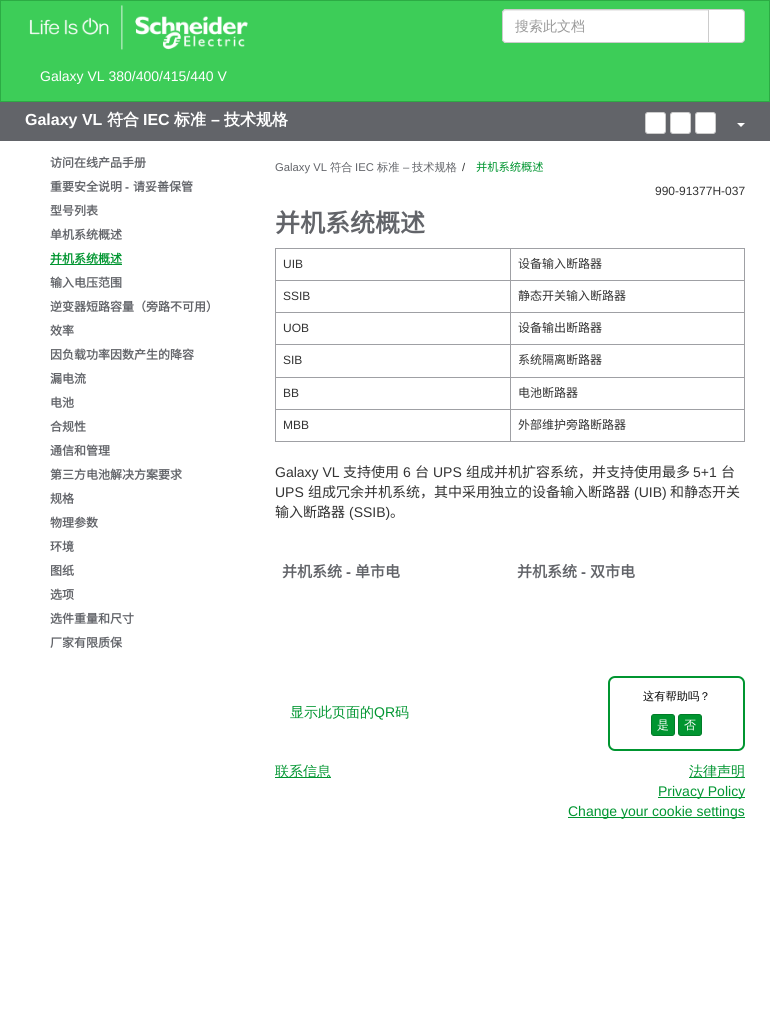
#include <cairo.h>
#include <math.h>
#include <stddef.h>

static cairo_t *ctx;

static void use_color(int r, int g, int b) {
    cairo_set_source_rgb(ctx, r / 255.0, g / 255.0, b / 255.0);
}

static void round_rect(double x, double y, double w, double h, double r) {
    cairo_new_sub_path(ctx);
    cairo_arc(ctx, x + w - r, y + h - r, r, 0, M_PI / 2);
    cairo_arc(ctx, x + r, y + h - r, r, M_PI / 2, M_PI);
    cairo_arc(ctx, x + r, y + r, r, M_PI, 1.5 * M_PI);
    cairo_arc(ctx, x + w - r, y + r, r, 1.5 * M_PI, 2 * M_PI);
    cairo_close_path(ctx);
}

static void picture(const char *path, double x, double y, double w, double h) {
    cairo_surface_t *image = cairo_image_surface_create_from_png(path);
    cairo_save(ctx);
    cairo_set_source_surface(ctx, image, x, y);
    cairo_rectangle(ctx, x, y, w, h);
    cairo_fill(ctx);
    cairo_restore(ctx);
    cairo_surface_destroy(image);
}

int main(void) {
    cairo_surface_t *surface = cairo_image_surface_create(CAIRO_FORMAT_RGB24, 770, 1029);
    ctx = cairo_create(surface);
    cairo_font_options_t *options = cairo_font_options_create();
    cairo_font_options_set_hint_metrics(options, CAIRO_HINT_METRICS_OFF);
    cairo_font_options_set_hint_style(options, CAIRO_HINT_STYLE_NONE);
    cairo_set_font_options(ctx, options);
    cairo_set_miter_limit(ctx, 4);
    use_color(255, 255, 255);
    cairo_paint(ctx);
    use_color(61, 205, 88);
    cairo_rectangle(ctx, 0.5, 0.5, 769, 101);
    cairo_fill_preserve(ctx);
    use_color(44, 171, 68);
    cairo_set_line_width(ctx, 1);
    cairo_stroke(ctx);
    picture("img1.png", 29, 5, 219, 45);
    use_color(255, 255, 255);
    cairo_new_path(ctx);
    cairo_move_to(ctx, 506, 9);
    cairo_line_to(ctx, 709, 9);
    cairo_line_to(ctx, 709, 43);
    cairo_line_to(ctx, 506, 43);
    cairo_curve_to(ctx, 504, 43, 502, 41, 502, 39);
    cairo_line_to(ctx, 502, 13);
    cairo_curve_to(ctx, 502, 11, 504, 9, 506, 9);
    cairo_close_path(ctx);
    cairo_fill(ctx);
    use_color(236, 236, 236);
    cairo_new_path(ctx);
    cairo_move_to(ctx, 506, 11);
    cairo_line_to(ctx, 708, 11);
    cairo_line_to(ctx, 708, 10);
    cairo_line_to(ctx, 505, 10);
    cairo_curve_to(ctx, 503, 11, 503, 12, 503, 14);
    cairo_curve_to(ctx, 503, 12, 504, 11, 506, 11);
    cairo_close_path(ctx);
    cairo_fill(ctx);
    cairo_new_path(ctx);
    cairo_move_to(ctx, 506, 9.5);
    cairo_line_to(ctx, 708.5, 9.5);
    cairo_line_to(ctx, 708.5, 42.5);
    cairo_line_to(ctx, 506, 42.5);
    cairo_curve_to(ctx, 504, 42.5, 502.5, 41, 502.5, 39);
    cairo_line_to(ctx, 502.5, 13);
    cairo_curve_to(ctx, 502.5, 11, 504, 9.5, 506, 9.5);
    cairo_close_path(ctx);
    use_color(204, 204, 204);
    cairo_stroke(ctx);
    cairo_select_font_face(ctx, "WenQuanYi Zen Hei Medium", CAIRO_FONT_SLANT_NORMAL, CAIRO_FONT_WEIGHT_NORMAL);
    cairo_set_font_size(ctx, 14);
    use_color(153, 153, 153);
    cairo_move_to(ctx, 515, 31);
    cairo_show_text(ctx, "搜索此文档");
    use_color(255, 255, 255);
    cairo_new_path(ctx);
    cairo_move_to(ctx, 708.5, 9.5);
    cairo_line_to(ctx, 741, 9.5);
    cairo_curve_to(ctx, 743, 9.5, 744.5, 11, 744.5, 13);
    cairo_line_to(ctx, 744.5, 39);
    cairo_curve_to(ctx, 744.5, 41, 743, 42.5, 741, 42.5);
    cairo_line_to(ctx, 708.5, 42.5);
    cairo_close_path(ctx);
    cairo_fill_preserve(ctx);
    use_color(204, 204, 204);
    cairo_stroke(ctx);
    cairo_select_font_face(ctx, "Liberation Sans", CAIRO_FONT_SLANT_NORMAL, CAIRO_FONT_WEIGHT_NORMAL);
    use_color(255, 255, 255);
    cairo_move_to(ctx, 40, 81);
    cairo_show_text(ctx, "Galaxy VL 380/400/415/440 V");
    use_color(98, 100, 105);
    cairo_rectangle(ctx, 0, 102, 770, 39);
    cairo_fill(ctx);
    cairo_select_font_face(ctx, "Liberation Sans", CAIRO_FONT_SLANT_NORMAL, CAIRO_FONT_WEIGHT_BOLD);
    cairo_set_font_size(ctx, 16);
    use_color(255, 255, 255);
    cairo_move_to(ctx, 25, 125);
    cairo_show_text(ctx, "Galaxy VL");
    cairo_select_font_face(ctx, "WenQuanYi Zen Hei", CAIRO_FONT_SLANT_NORMAL, CAIRO_FONT_WEIGHT_BOLD);
    cairo_move_to(ctx, 107, 125);
    cairo_show_text(ctx, "符合");
    cairo_select_font_face(ctx, "Liberation Sans", CAIRO_FONT_SLANT_NORMAL, CAIRO_FONT_WEIGHT_BOLD);
    cairo_move_to(ctx, 143, 125);
    cairo_show_text(ctx, "IEC");
    cairo_select_font_face(ctx, "WenQuanYi Zen Hei", CAIRO_FONT_SLANT_NORMAL, CAIRO_FONT_WEIGHT_BOLD);
    cairo_move_to(ctx, 174, 125);
    cairo_show_text(ctx, "标准");
    cairo_select_font_face(ctx, "Liberation Sans", CAIRO_FONT_SLANT_NORMAL, CAIRO_FONT_WEIGHT_BOLD);
    cairo_move_to(ctx, 211, 125);
    cairo_show_text(ctx, "–");
    cairo_select_font_face(ctx, "WenQuanYi Zen Hei", CAIRO_FONT_SLANT_NORMAL, CAIRO_FONT_WEIGHT_BOLD);
    cairo_move_to(ctx, 224, 125);
    cairo_show_text(ctx, "技术规格");
    round_rect(645.5, 112.5, 20, 21, 2.5);
    cairo_fill_preserve(ctx);
    use_color(204, 204, 204);
    cairo_stroke(ctx);
    use_color(255, 255, 255);
    round_rect(670.5, 112.5, 20, 21, 2.5);
    cairo_fill_preserve(ctx);
    use_color(204, 204, 204);
    cairo_stroke(ctx);
    use_color(255, 255, 255);
    round_rect(695.5, 112.5, 20, 21, 2.5);
    cairo_fill_preserve(ctx);
    use_color(204, 204, 204);
    cairo_stroke(ctx);
    use_color(255, 255, 255);
    cairo_new_path(ctx);
    cairo_move_to(ctx, 737, 123);
    cairo_line_to(ctx, 745, 123);
    cairo_line_to(ctx, 741, 127);
    cairo_close_path(ctx);
    cairo_fill(ctx);
    cairo_select_font_face(ctx, "Noto Sans CJK SC", CAIRO_FONT_SLANT_NORMAL, CAIRO_FONT_WEIGHT_BOLD);
    cairo_set_font_size(ctx, 12);
    use_color(98, 100, 105);
    cairo_move_to(ctx, 50, 167);
    cairo_show_text(ctx, "访问在线产品手册");
    cairo_move_to(ctx, 50, 191);
    cairo_show_text(ctx, "重要安全说明");
    cairo_select_font_face(ctx, "Liberation Sans", CAIRO_FONT_SLANT_NORMAL, CAIRO_FONT_WEIGHT_BOLD);
    cairo_move_to(ctx, 125, 191);
    cairo_show_text(ctx, "-");
    cairo_select_font_face(ctx, "Noto Sans CJK SC", CAIRO_FONT_SLANT_NORMAL, CAIRO_FONT_WEIGHT_BOLD);
    cairo_move_to(ctx, 133, 191);
    cairo_show_text(ctx, "请妥善保管");
    cairo_move_to(ctx, 50, 215);
    cairo_show_text(ctx, "型号列表");
    cairo_move_to(ctx, 50, 239);
    cairo_show_text(ctx, "单机系统概述");
    use_color(0, 149, 48);
    cairo_move_to(ctx, 50, 263);
    cairo_show_text(ctx, "并机系统概述");
    cairo_rectangle(ctx, 50, 264, 72, 1);
    cairo_fill(ctx);
    use_color(98, 100, 105);
    cairo_move_to(ctx, 50, 287);
    cairo_show_text(ctx, "输入电压范围");
    cairo_move_to(ctx, 50, 311);
    cairo_show_text(ctx, "逆变器短路容量（旁路不可用）");
    cairo_move_to(ctx, 50, 335);
    cairo_show_text(ctx, "效率");
    cairo_move_to(ctx, 50, 359);
    cairo_show_text(ctx, "因负载功率因数产生的降容");
    cairo_move_to(ctx, 50, 383);
    cairo_show_text(ctx, "漏电流");
    cairo_move_to(ctx, 50, 407);
    cairo_show_text(ctx, "电池");
    cairo_move_to(ctx, 50, 431);
    cairo_show_text(ctx, "合规性");
    cairo_move_to(ctx, 50, 455);
    cairo_show_text(ctx, "通信和管理");
    cairo_move_to(ctx, 50, 479);
    cairo_show_text(ctx, "第三方电池解决方案要求");
    cairo_move_to(ctx, 50, 503);
    cairo_show_text(ctx, "规格");
    cairo_move_to(ctx, 50, 527);
    cairo_show_text(ctx, "物理参数");
    cairo_move_to(ctx, 50, 551);
    cairo_show_text(ctx, "环境");
    cairo_move_to(ctx, 50, 575);
    cairo_show_text(ctx, "图纸");
    cairo_move_to(ctx, 50, 599);
    cairo_show_text(ctx, "选项");
    cairo_move_to(ctx, 50, 623);
    cairo_show_text(ctx, "选件重量和尺寸");
    cairo_move_to(ctx, 50, 647);
    cairo_show_text(ctx, "厂家有限质保");
    cairo_select_font_face(ctx, "Liberation Sans", CAIRO_FONT_SLANT_NORMAL, CAIRO_FONT_WEIGHT_NORMAL);
    cairo_set_font_size(ctx, 11.25);
    cairo_move_to(ctx, 275, 171);
    cairo_show_text(ctx, "Galaxy VL");
    cairo_select_font_face(ctx, "WenQuanYi Zen Hei Medium", CAIRO_FONT_SLANT_NORMAL, CAIRO_FONT_WEIGHT_NORMAL);
    cairo_move_to(ctx, 330, 171);
    cairo_show_text(ctx, "符合");
    cairo_select_font_face(ctx, "Liberation Sans", CAIRO_FONT_SLANT_NORMAL, CAIRO_FONT_WEIGHT_NORMAL);
    cairo_move_to(ctx, 355, 171);
    cairo_show_text(ctx, "IEC");
    cairo_select_font_face(ctx, "WenQuanYi Zen Hei Medium", CAIRO_FONT_SLANT_NORMAL, CAIRO_FONT_WEIGHT_NORMAL);
    cairo_move_to(ctx, 377, 171);
    cairo_show_text(ctx, "标准");
    cairo_select_font_face(ctx, "Liberation Sans", CAIRO_FONT_SLANT_NORMAL, CAIRO_FONT_WEIGHT_NORMAL);
    cairo_move_to(ctx, 403, 171);
    cairo_show_text(ctx, "–");
    cairo_select_font_face(ctx, "WenQuanYi Zen Hei Medium", CAIRO_FONT_SLANT_NORMAL, CAIRO_FONT_WEIGHT_NORMAL);
    cairo_move_to(ctx, 412, 171);
    cairo_show_text(ctx, "技术规格");
    cairo_select_font_face(ctx, "Liberation Sans", CAIRO_FONT_SLANT_NORMAL, CAIRO_FONT_WEIGHT_NORMAL);
    use_color(51, 51, 51);
    cairo_move_to(ctx, 462, 171);
    cairo_show_text(ctx, "/");
    cairo_select_font_face(ctx, "Noto Sans CJK SC", CAIRO_FONT_SLANT_NORMAL, CAIRO_FONT_WEIGHT_NORMAL);
    use_color(0, 149, 48);
    cairo_move_to(ctx, 476, 171);
    cairo_show_text(ctx, "并机系统概述");
    cairo_select_font_face(ctx, "Liberation Sans", CAIRO_FONT_SLANT_NORMAL, CAIRO_FONT_WEIGHT_NORMAL);
    cairo_set_font_size(ctx, 12);
    use_color(51, 51, 51);
    cairo_move_to(ctx, 655, 195);
    cairo_show_text(ctx, "990-91377H-037");
    cairo_select_font_face(ctx, "Noto Sans CJK SC", CAIRO_FONT_SLANT_NORMAL, CAIRO_FONT_WEIGHT_BOLD);
    cairo_set_font_size(ctx, 25);
    use_color(98, 100, 105);
    cairo_move_to(ctx, 275, 232);
    cairo_show_text(ctx, "并机系统概述");
    use_color(159, 160, 164);
    cairo_rectangle(ctx, 275, 248, 470, 1);
    cairo_fill(ctx);
    cairo_rectangle(ctx, 744, 280, 1, 162);
    cairo_fill(ctx);
    cairo_rectangle(ctx, 744, 248, 1, 33);
    cairo_fill(ctx);
    cairo_rectangle(ctx, 510, 441, 235, 1);
    cairo_fill(ctx);
    cairo_rectangle(ctx, 510, 409, 1, 33);
    cairo_fill(ctx);
    cairo_rectangle(ctx, 510, 409, 235, 1);
    cairo_fill(ctx);
    cairo_rectangle(ctx, 510, 377, 1, 33);
    cairo_fill(ctx);
    cairo_rectangle(ctx, 510, 377, 235, 1);
    cairo_fill(ctx);
    cairo_rectangle(ctx, 510, 344, 1, 34);
    cairo_fill(ctx);
    cairo_rectangle(ctx, 510, 344, 235, 1);
    cairo_fill(ctx);
    cairo_rectangle(ctx, 510, 312, 1, 33);
    cairo_fill(ctx);
    cairo_rectangle(ctx, 510, 312, 235, 1);
    cairo_fill(ctx);
    cairo_rectangle(ctx, 510, 280, 1, 33);
    cairo_fill(ctx);
    cairo_rectangle(ctx, 510, 280, 235, 1);
    cairo_fill(ctx);
    cairo_rectangle(ctx, 510, 248, 1, 33);
    cairo_fill(ctx);
    cairo_rectangle(ctx, 275, 441, 236, 1);
    cairo_fill(ctx);
    cairo_rectangle(ctx, 275, 409, 1, 33);
    cairo_fill(ctx);
    cairo_rectangle(ctx, 275, 409, 236, 1);
    cairo_fill(ctx);
    cairo_rectangle(ctx, 275, 377, 1, 33);
    cairo_fill(ctx);
    cairo_rectangle(ctx, 275, 377, 236, 1);
    cairo_fill(ctx);
    cairo_rectangle(ctx, 275, 344, 1, 34);
    cairo_fill(ctx);
    cairo_rectangle(ctx, 275, 344, 236, 1);
    cairo_fill(ctx);
    cairo_rectangle(ctx, 275, 312, 1, 33);
    cairo_fill(ctx);
    cairo_rectangle(ctx, 275, 312, 236, 1);
    cairo_fill(ctx);
    cairo_rectangle(ctx, 275, 280, 1, 33);
    cairo_fill(ctx);
    cairo_rectangle(ctx, 275, 280, 236, 1);
    cairo_fill(ctx);
    cairo_rectangle(ctx, 275, 248, 1, 33);
    cairo_fill(ctx);
    cairo_select_font_face(ctx, "Liberation Sans", CAIRO_FONT_SLANT_NORMAL, CAIRO_FONT_WEIGHT_NORMAL);
    cairo_set_font_size(ctx, 12);
    use_color(51, 51, 51);
    cairo_move_to(ctx, 283, 268);
    cairo_show_text(ctx, "UIB");
    cairo_select_font_face(ctx, "Noto Sans CJK SC", CAIRO_FONT_SLANT_NORMAL, CAIRO_FONT_WEIGHT_NORMAL);
    cairo_move_to(ctx, 518, 268);
    cairo_show_text(ctx, "设备输入断路器");
    cairo_select_font_face(ctx, "Liberation Sans", CAIRO_FONT_SLANT_NORMAL, CAIRO_FONT_WEIGHT_NORMAL);
    cairo_move_to(ctx, 283, 300);
    cairo_show_text(ctx, "SSIB");
    cairo_select_font_face(ctx, "Noto Sans CJK SC", CAIRO_FONT_SLANT_NORMAL, CAIRO_FONT_WEIGHT_NORMAL);
    cairo_move_to(ctx, 518, 300);
    cairo_show_text(ctx, "静态开关输入断路器");
    cairo_select_font_face(ctx, "Liberation Sans", CAIRO_FONT_SLANT_NORMAL, CAIRO_FONT_WEIGHT_NORMAL);
    cairo_move_to(ctx, 283, 332);
    cairo_show_text(ctx, "UOB");
    cairo_select_font_face(ctx, "Noto Sans CJK SC", CAIRO_FONT_SLANT_NORMAL, CAIRO_FONT_WEIGHT_NORMAL);
    cairo_move_to(ctx, 518, 332);
    cairo_show_text(ctx, "设备输出断路器");
    cairo_select_font_face(ctx, "Liberation Sans", CAIRO_FONT_SLANT_NORMAL, CAIRO_FONT_WEIGHT_NORMAL);
    cairo_move_to(ctx, 283, 364);
    cairo_show_text(ctx, "SIB");
    cairo_select_font_face(ctx, "Noto Sans CJK SC", CAIRO_FONT_SLANT_NORMAL, CAIRO_FONT_WEIGHT_NORMAL);
    cairo_move_to(ctx, 518, 364);
    cairo_show_text(ctx, "系统隔离断路器");
    cairo_select_font_face(ctx, "Liberation Sans", CAIRO_FONT_SLANT_NORMAL, CAIRO_FONT_WEIGHT_NORMAL);
    cairo_move_to(ctx, 283, 397);
    cairo_show_text(ctx, "BB");
    cairo_select_font_face(ctx, "Noto Sans CJK SC", CAIRO_FONT_SLANT_NORMAL, CAIRO_FONT_WEIGHT_NORMAL);
    cairo_move_to(ctx, 518, 397);
    cairo_show_text(ctx, "电池断路器");
    cairo_select_font_face(ctx, "Liberation Sans", CAIRO_FONT_SLANT_NORMAL, CAIRO_FONT_WEIGHT_NORMAL);
    cairo_move_to(ctx, 283, 429);
    cairo_show_text(ctx, "MBB");
    cairo_select_font_face(ctx, "Noto Sans CJK SC", CAIRO_FONT_SLANT_NORMAL, CAIRO_FONT_WEIGHT_NORMAL);
    cairo_move_to(ctx, 518, 429);
    cairo_show_text(ctx, "外部维护旁路断路器");
    cairo_select_font_face(ctx, "Liberation Sans", CAIRO_FONT_SLANT_NORMAL, CAIRO_FONT_WEIGHT_NORMAL);
    cairo_set_font_size(ctx, 14);
    cairo_move_to(ctx, 275, 477);
    cairo_show_text(ctx, "Galaxy VL");
    cairo_select_font_face(ctx, "Noto Sans CJK SC", CAIRO_FONT_SLANT_NORMAL, CAIRO_FONT_WEIGHT_NORMAL);
    cairo_move_to(ctx, 343, 477);
    cairo_show_text(ctx, "支持使用");
    cairo_select_font_face(ctx, "Liberation Sans", CAIRO_FONT_SLANT_NORMAL, CAIRO_FONT_WEIGHT_NORMAL);
    cairo_move_to(ctx, 403, 477);
    cairo_show_text(ctx, "6");
    cairo_select_font_face(ctx, "Noto Sans CJK SC", CAIRO_FONT_SLANT_NORMAL, CAIRO_FONT_WEIGHT_NORMAL);
    cairo_move_to(ctx, 415, 477);
    cairo_show_text(ctx, "台");
    cairo_select_font_face(ctx, "Liberation Sans", CAIRO_FONT_SLANT_NORMAL, CAIRO_FONT_WEIGHT_NORMAL);
    cairo_move_to(ctx, 433, 477);
    cairo_show_text(ctx, "UPS");
    cairo_select_font_face(ctx, "Noto Sans CJK SC", CAIRO_FONT_SLANT_NORMAL, CAIRO_FONT_WEIGHT_NORMAL);
    cairo_move_to(ctx, 466, 477);
    cairo_show_text(ctx, "组成并机扩容系统，并支持使用最多");
    cairo_select_font_face(ctx, "Liberation Sans", CAIRO_FONT_SLANT_NORMAL, CAIRO_FONT_WEIGHT_NORMAL);
    cairo_move_to(ctx, 693, 477);
    cairo_show_text(ctx, "5+1");
    cairo_select_font_face(ctx, "Noto Sans CJK SC", CAIRO_FONT_SLANT_NORMAL, CAIRO_FONT_WEIGHT_NORMAL);
    cairo_move_to(ctx, 721, 477);
    cairo_show_text(ctx, "台");
    cairo_select_font_face(ctx, "Liberation Sans", CAIRO_FONT_SLANT_NORMAL, CAIRO_FONT_WEIGHT_NORMAL);
    cairo_move_to(ctx, 275, 497);
    cairo_show_text(ctx, "UPS");
    cairo_select_font_face(ctx, "Noto Sans CJK SC", CAIRO_FONT_SLANT_NORMAL, CAIRO_FONT_WEIGHT_NORMAL);
    cairo_move_to(ctx, 308, 497);
    cairo_show_text(ctx, "组成冗余并机系统，其中采用独立的设备输入断路器");
    cairo_select_font_face(ctx, "Liberation Sans", CAIRO_FONT_SLANT_NORMAL, CAIRO_FONT_WEIGHT_NORMAL);
    cairo_move_to(ctx, 634, 497);
    cairo_show_text(ctx, "(UIB)");
    cairo_select_font_face(ctx, "Noto Sans CJK SC", CAIRO_FONT_SLANT_NORMAL, CAIRO_FONT_WEIGHT_NORMAL);
    cairo_move_to(ctx, 670, 497);
    cairo_show_text(ctx, "和静态开关");
    cairo_move_to(ctx, 275, 517);
    cairo_show_text(ctx, "输入断路器");
    cairo_select_font_face(ctx, "Liberation Sans", CAIRO_FONT_SLANT_NORMAL, CAIRO_FONT_WEIGHT_NORMAL);
    cairo_move_to(ctx, 349, 517);
    cairo_show_text(ctx, "(SSIB)");
    cairo_select_font_face(ctx, "Noto Sans CJK SC", CAIRO_FONT_SLANT_NORMAL, CAIRO_FONT_WEIGHT_NORMAL);
    cairo_move_to(ctx, 390, 517);
    cairo_show_text(ctx, "。");
    cairo_select_font_face(ctx, "Noto Sans CJK SC", CAIRO_FONT_SLANT_NORMAL, CAIRO_FONT_WEIGHT_BOLD);
    cairo_set_font_size(ctx, 15);
    use_color(98, 100, 105);
    cairo_move_to(ctx, 282, 577);
    cairo_show_text(ctx, "并机系统");
    cairo_select_font_face(ctx, "Liberation Sans", CAIRO_FONT_SLANT_NORMAL, CAIRO_FONT_WEIGHT_BOLD);
    cairo_move_to(ctx, 346, 577);
    cairo_show_text(ctx, "-");
    cairo_select_font_face(ctx, "Noto Sans CJK SC", CAIRO_FONT_SLANT_NORMAL, CAIRO_FONT_WEIGHT_BOLD);
    cairo_move_to(ctx, 355, 577);
    cairo_show_text(ctx, "单市电");
    cairo_move_to(ctx, 517, 577);
    cairo_show_text(ctx, "并机系统");
    cairo_select_font_face(ctx, "Liberation Sans", CAIRO_FONT_SLANT_NORMAL, CAIRO_FONT_WEIGHT_BOLD);
    cairo_move_to(ctx, 581, 577);
    cairo_show_text(ctx, "-");
    cairo_select_font_face(ctx, "Noto Sans CJK SC", CAIRO_FONT_SLANT_NORMAL, CAIRO_FONT_WEIGHT_BOLD);
    cairo_move_to(ctx, 590, 577);
    cairo_show_text(ctx, "双市电");
    cairo_select_font_face(ctx, "WenQuanYi Zen Hei Medium", CAIRO_FONT_SLANT_NORMAL, CAIRO_FONT_WEIGHT_NORMAL);
    cairo_set_font_size(ctx, 14);
    use_color(0, 149, 48);
    cairo_move_to(ctx, 290, 717);
    cairo_show_text(ctx, "显示此页面的");
    cairo_select_font_face(ctx, "Liberation Sans", CAIRO_FONT_SLANT_NORMAL, CAIRO_FONT_WEIGHT_NORMAL);
    cairo_move_to(ctx, 374, 717);
    cairo_show_text(ctx, "QR");
    cairo_select_font_face(ctx, "WenQuanYi Zen Hei Medium", CAIRO_FONT_SLANT_NORMAL, CAIRO_FONT_WEIGHT_NORMAL);
    cairo_move_to(ctx, 395, 717);
    cairo_show_text(ctx, "码");
    round_rect(609, 677, 135, 73, 6);
    cairo_set_line_width(ctx, 2);
    cairo_stroke(ctx);
    cairo_set_font_size(ctx, 11.25);
    use_color(0, 0, 0);
    cairo_move_to(ctx, 643, 700);
    cairo_show_text(ctx, "这有帮助吗？");
    use_color(0, 149, 48);
    round_rect(651.5, 714.5, 23, 21, 2.5);
    cairo_fill_preserve(ctx);
    use_color(0, 124, 40);
    cairo_set_line_width(ctx, 1);
    cairo_stroke(ctx);
    cairo_set_font_size(ctx, 12);
    use_color(255, 255, 255);
    cairo_move_to(ctx, 657, 729);
    cairo_show_text(ctx, "是");
    use_color(0, 149, 48);
    round_rect(678.5, 714.5, 23, 21, 2.5);
    cairo_fill_preserve(ctx);
    use_color(0, 124, 40);
    cairo_stroke(ctx);
    use_color(255, 255, 255);
    cairo_move_to(ctx, 684, 729);
    cairo_show_text(ctx, "否");
    use_color(0, 149, 48);
    cairo_rectangle(ctx, 275, 777, 56, 1);
    cairo_fill(ctx);
    cairo_set_font_size(ctx, 14);
    cairo_move_to(ctx, 275, 776);
    cairo_show_text(ctx, "联系信息");
    cairo_rectangle(ctx, 689, 777, 56, 1);
    cairo_fill(ctx);
    cairo_move_to(ctx, 689, 776);
    cairo_show_text(ctx, "法律声明");
    cairo_rectangle(ctx, 658, 797, 87, 1);
    cairo_fill(ctx);
    cairo_select_font_face(ctx, "Liberation Sans", CAIRO_FONT_SLANT_NORMAL, CAIRO_FONT_WEIGHT_NORMAL);
    cairo_move_to(ctx, 658, 796);
    cairo_show_text(ctx, "Privacy Policy");
    cairo_rectangle(ctx, 568, 817, 177, 1);
    cairo_fill(ctx);
    cairo_move_to(ctx, 568, 816);
    cairo_show_text(ctx, "Change your cookie settings");
    cairo_surface_write_to_png(surface, "result.png");
    cairo_font_options_destroy(options);
    cairo_destroy(ctx);
    cairo_surface_destroy(surface);
    return 0;
}
